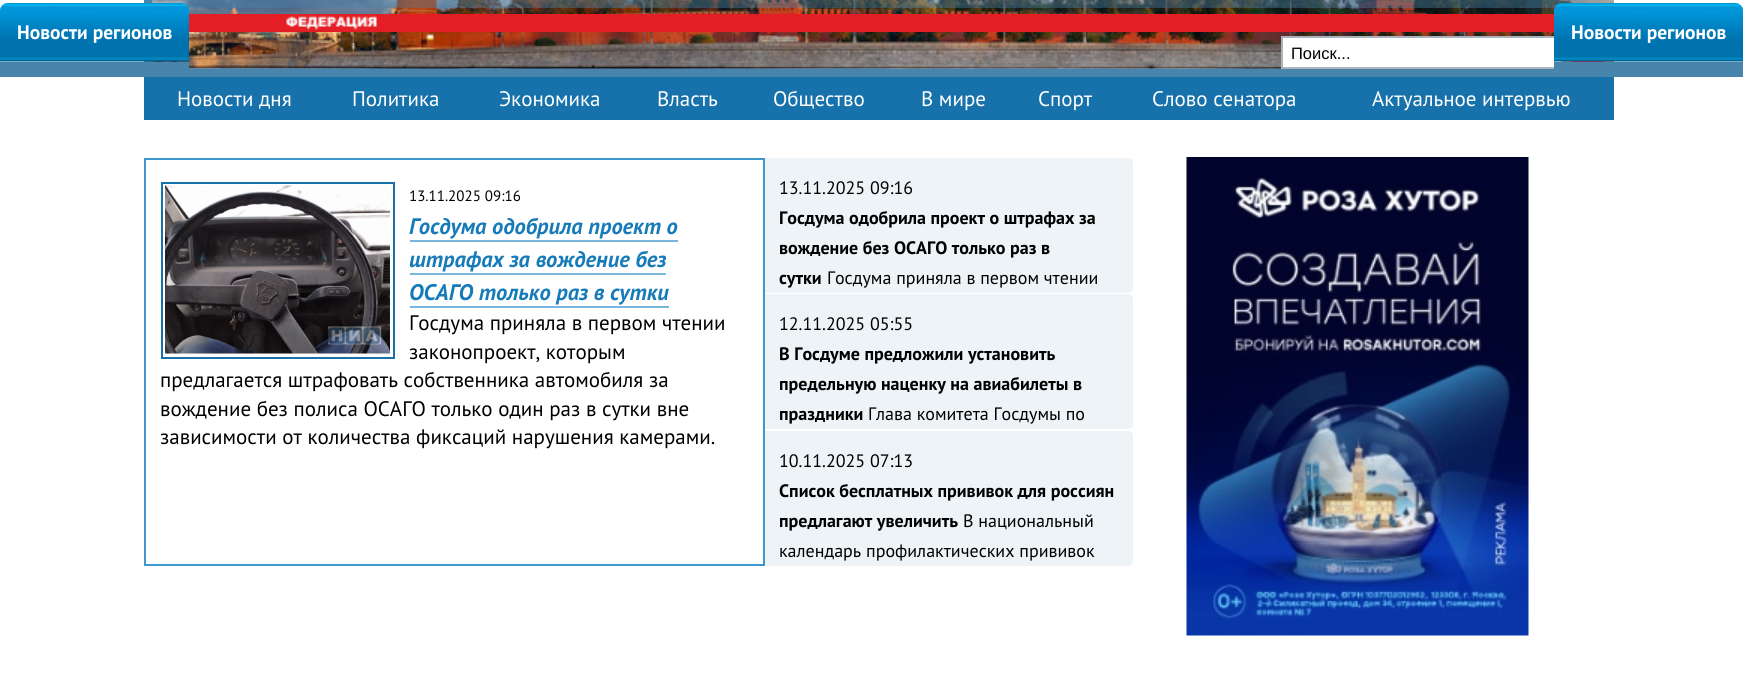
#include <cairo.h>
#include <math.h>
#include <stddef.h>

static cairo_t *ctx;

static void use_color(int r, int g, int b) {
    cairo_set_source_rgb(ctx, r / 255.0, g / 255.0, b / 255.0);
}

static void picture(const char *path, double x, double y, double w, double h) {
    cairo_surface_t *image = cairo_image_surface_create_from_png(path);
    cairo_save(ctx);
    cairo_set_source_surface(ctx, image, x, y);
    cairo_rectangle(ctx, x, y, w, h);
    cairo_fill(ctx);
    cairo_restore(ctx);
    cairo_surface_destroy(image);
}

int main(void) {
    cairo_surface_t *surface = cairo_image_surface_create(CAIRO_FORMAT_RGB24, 1756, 677);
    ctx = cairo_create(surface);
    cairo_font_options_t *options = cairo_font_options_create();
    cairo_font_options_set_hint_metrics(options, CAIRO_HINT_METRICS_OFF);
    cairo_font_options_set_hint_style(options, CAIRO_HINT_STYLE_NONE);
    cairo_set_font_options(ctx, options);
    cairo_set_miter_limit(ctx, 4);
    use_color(255, 255, 255);
    cairo_paint(ctx);
    picture("img5.png", 152, 0, 1462, 69);
    use_color(72, 133, 172);
    cairo_rectangle(ctx, 144, 0, 8, 62);
    cairo_fill(ctx);
    cairo_set_source_rgba(ctx, 0.282, 0.522, 0.675, 0.4);
    cairo_rectangle(ctx, 185, 0, 1429, 8);
    cairo_fill(ctx);
    picture("img1.png", 0, 3, 189, 59);
    cairo_select_font_face(ctx, "PT Sans", CAIRO_FONT_SLANT_NORMAL, CAIRO_FONT_WEIGHT_BOLD);
    cairo_set_font_size(ctx, 19.5);
    use_color(255, 255, 255);
    cairo_move_to(ctx, 17, 39);
    cairo_show_text(ctx, "Новости регионов");
    use_color(72, 133, 172);
    cairo_rectangle(ctx, 0, 62, 189, 15);
    cairo_fill(ctx);
    use_color(255, 255, 255);
    cairo_rectangle(ctx, 1282, 37, 280, 31);
    cairo_fill_preserve(ctx);
    use_color(170, 179, 185);
    cairo_stroke(ctx);
    picture("img7.png", 1570, 61, 36, 1);
    picture("img2.png", 1554, 3, 189, 59);
    use_color(255, 255, 255);
    cairo_move_to(ctx, 1571, 39);
    cairo_show_text(ctx, "Новости регионов");
    use_color(72, 133, 172);
    cairo_rectangle(ctx, 1554, 62, 189, 15);
    cairo_fill(ctx);
    cairo_rectangle(ctx, 145, 159, 619, 406);
    use_color(64, 151, 206);
    cairo_stroke(ctx);
    cairo_rectangle(ctx, 162, 183, 232, 175);
    use_color(23, 114, 171);
    cairo_stroke(ctx);
    picture("img3.png", 165, 185, 225, 169);
    cairo_select_font_face(ctx, "PT Sans", CAIRO_FONT_SLANT_NORMAL, CAIRO_FONT_WEIGHT_NORMAL);
    cairo_set_font_size(ctx, 15);
    use_color(0, 0, 0);
    cairo_move_to(ctx, 409, 201);
    cairo_show_text(ctx, "13.11.2025 09:16");
    cairo_select_font_face(ctx, "PT Sans", CAIRO_FONT_SLANT_ITALIC, CAIRO_FONT_WEIGHT_BOLD);
    cairo_set_font_size(ctx, 22.5);
    use_color(23, 123, 185);
    cairo_move_to(ctx, 409, 234);
    cairo_show_text(ctx, "Госдума одобрила проект о");
    use_color(121, 182, 221);
    cairo_rectangle(ctx, 410, 240, 268, 2);
    cairo_fill(ctx);
    use_color(23, 123, 185);
    cairo_move_to(ctx, 409, 267);
    cairo_show_text(ctx, "штрафах за вождение без");
    use_color(121, 182, 221);
    cairo_rectangle(ctx, 410, 273, 256, 2);
    cairo_fill(ctx);
    use_color(23, 123, 185);
    cairo_move_to(ctx, 409, 300);
    cairo_show_text(ctx, "ОСАГО только раз в сутки");
    use_color(121, 182, 221);
    cairo_rectangle(ctx, 410, 306, 259, 2);
    cairo_fill(ctx);
    cairo_select_font_face(ctx, "PT Sans", CAIRO_FONT_SLANT_NORMAL, CAIRO_FONT_WEIGHT_NORMAL);
    cairo_set_font_size(ctx, 21);
    use_color(0, 0, 0);
    cairo_move_to(ctx, 409, 330);
    cairo_show_text(ctx, "Госдума приняла в первом чтении");
    cairo_move_to(ctx, 409, 359);
    cairo_show_text(ctx, "законопроект, которым");
    cairo_move_to(ctx, 160, 387);
    cairo_show_text(ctx, "предлагается штрафовать собственника автомобиля за");
    cairo_move_to(ctx, 160, 416);
    cairo_show_text(ctx, "вождение без полиса ОСАГО только один раз в сутки вне");
    cairo_save(ctx);
    cairo_rectangle(ctx, 161, 182, 573, 360);
    cairo_clip(ctx);
    cairo_move_to(ctx, 160, 444);
    cairo_show_text(ctx, "зависимости от количества фиксаций нарушения камерами.");
    cairo_restore(ctx);
    use_color(237, 243, 246);
    cairo_new_path(ctx);
    cairo_move_to(ctx, 765, 158);
    cairo_line_to(ctx, 1128, 158);
    cairo_curve_to(ctx, 1131, 158, 1133, 160, 1133, 163);
    cairo_line_to(ctx, 1133, 288);
    cairo_curve_to(ctx, 1133, 291, 1131, 293, 1128, 293);
    cairo_line_to(ctx, 765, 293);
    cairo_close_path(ctx);
    cairo_fill(ctx);
    cairo_set_font_size(ctx, 18);
    use_color(0, 0, 0);
    cairo_move_to(ctx, 779, 194);
    cairo_show_text(ctx, "13.11.2025 09:16");
    cairo_select_font_face(ctx, "PT Sans", CAIRO_FONT_SLANT_NORMAL, CAIRO_FONT_WEIGHT_BOLD);
    cairo_move_to(ctx, 779, 224);
    cairo_show_text(ctx, "Госдума одобрила проект о штрафах за");
    cairo_move_to(ctx, 779, 254);
    cairo_show_text(ctx, "вождение без ОСАГО только раз в");
    cairo_move_to(ctx, 779, 284);
    cairo_show_text(ctx, "сутки");
    cairo_select_font_face(ctx, "PT Sans", CAIRO_FONT_SLANT_NORMAL, CAIRO_FONT_WEIGHT_NORMAL);
    cairo_move_to(ctx, 827, 284);
    cairo_show_text(ctx, "Госдума приняла в первом чтении");
    use_color(237, 243, 246);
    cairo_new_path(ctx);
    cairo_move_to(ctx, 765, 294);
    cairo_line_to(ctx, 1128, 294);
    cairo_curve_to(ctx, 1131, 294, 1133, 296, 1133, 299);
    cairo_line_to(ctx, 1133, 424);
    cairo_curve_to(ctx, 1133, 427, 1131, 429, 1128, 429);
    cairo_line_to(ctx, 765, 429);
    cairo_close_path(ctx);
    cairo_fill(ctx);
    use_color(0, 0, 0);
    cairo_move_to(ctx, 779, 330);
    cairo_show_text(ctx, "12.11.2025 05:55");
    cairo_select_font_face(ctx, "PT Sans", CAIRO_FONT_SLANT_NORMAL, CAIRO_FONT_WEIGHT_BOLD);
    cairo_move_to(ctx, 779, 360);
    cairo_show_text(ctx, "В Госдуме предложили установить");
    cairo_move_to(ctx, 779, 390);
    cairo_show_text(ctx, "предельную наценку на авиабилеты в");
    cairo_move_to(ctx, 779, 420);
    cairo_show_text(ctx, "праздники");
    cairo_select_font_face(ctx, "PT Sans", CAIRO_FONT_SLANT_NORMAL, CAIRO_FONT_WEIGHT_NORMAL);
    cairo_move_to(ctx, 868, 420);
    cairo_show_text(ctx, "Глава комитета Госдумы по");
    use_color(237, 243, 246);
    cairo_new_path(ctx);
    cairo_move_to(ctx, 765, 431);
    cairo_line_to(ctx, 1128, 431);
    cairo_curve_to(ctx, 1131, 431, 1133, 433, 1133, 436);
    cairo_line_to(ctx, 1133, 561);
    cairo_curve_to(ctx, 1133, 564, 1131, 566, 1128, 566);
    cairo_line_to(ctx, 765, 566);
    cairo_close_path(ctx);
    cairo_fill(ctx);
    use_color(0, 0, 0);
    cairo_move_to(ctx, 779, 467);
    cairo_show_text(ctx, "10.11.2025 07:13");
    cairo_select_font_face(ctx, "PT Sans", CAIRO_FONT_SLANT_NORMAL, CAIRO_FONT_WEIGHT_BOLD);
    cairo_move_to(ctx, 779, 497);
    cairo_show_text(ctx, "Список бесплатных прививок для россиян");
    cairo_move_to(ctx, 779, 527);
    cairo_show_text(ctx, "предлагают увеличить");
    cairo_select_font_face(ctx, "PT Sans", CAIRO_FONT_SLANT_NORMAL, CAIRO_FONT_WEIGHT_NORMAL);
    cairo_move_to(ctx, 963, 527);
    cairo_show_text(ctx, "В национальный");
    cairo_move_to(ctx, 779, 557);
    cairo_show_text(ctx, "календарь профилактических прививок");
    picture("img4.png", 1186, 157, 343, 479);
    use_color(72, 133, 172);
    cairo_rectangle(ctx, 189, 69, 1365, 8);
    cairo_fill(ctx);
    use_color(227, 30, 36);
    cairo_rectangle(ctx, 189, 14, 1365, 18);
    cairo_fill(ctx);
    picture("img6.png", 286, 15, 91, 15);
    cairo_select_font_face(ctx, "Liberation Sans", CAIRO_FONT_SLANT_NORMAL, CAIRO_FONT_WEIGHT_NORMAL);
    cairo_set_font_size(ctx, 16.5);
    use_color(0, 0, 0);
    cairo_move_to(ctx, 1291, 59);
    cairo_show_text(ctx, "Поиск...");
    use_color(23, 114, 171);
    cairo_rectangle(ctx, 144, 77, 1470, 43);
    cairo_fill(ctx);
    cairo_select_font_face(ctx, "PT Sans", CAIRO_FONT_SLANT_NORMAL, CAIRO_FONT_WEIGHT_NORMAL);
    cairo_set_font_size(ctx, 21);
    use_color(255, 255, 255);
    cairo_move_to(ctx, 177, 106);
    cairo_show_text(ctx, "Новости дня");
    cairo_move_to(ctx, 352, 106);
    cairo_show_text(ctx, "Политика");
    cairo_move_to(ctx, 499, 106);
    cairo_show_text(ctx, "Экономика");
    cairo_move_to(ctx, 657, 106);
    cairo_show_text(ctx, "Власть");
    cairo_move_to(ctx, 773, 106);
    cairo_show_text(ctx, "Общество");
    cairo_move_to(ctx, 921, 106);
    cairo_show_text(ctx, "В мире");
    cairo_move_to(ctx, 1038, 106);
    cairo_show_text(ctx, "Спорт");
    cairo_move_to(ctx, 1152, 106);
    cairo_show_text(ctx, "Слово сенатора");
    cairo_move_to(ctx, 1372, 106);
    cairo_show_text(ctx, "Актуальное интервью");
    cairo_surface_write_to_png(surface, "result.png");
    cairo_font_options_destroy(options);
    cairo_destroy(ctx);
    cairo_surface_destroy(surface);
    return 0;
}
